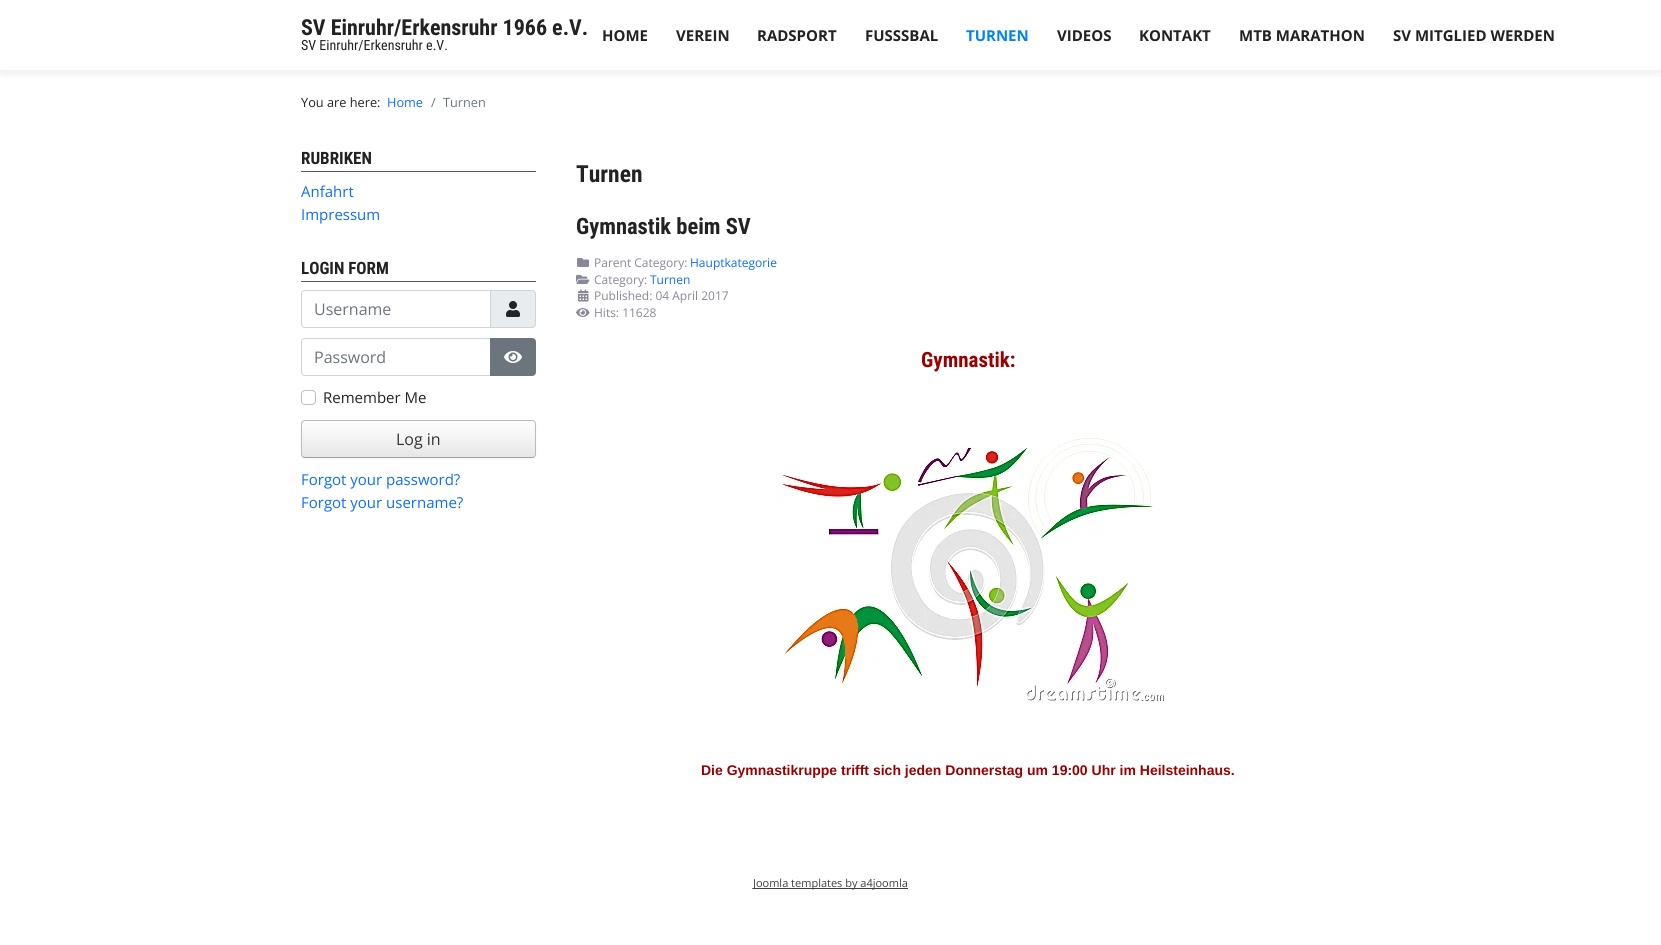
#include <cairo.h>
#include <math.h>
#include <stddef.h>

static cairo_t *ctx;

static void use_color(int r, int g, int b) {
    cairo_set_source_rgb(ctx, r / 255.0, g / 255.0, b / 255.0);
}

static void round_rect(double x, double y, double w, double h, double r) {
    cairo_new_sub_path(ctx);
    cairo_arc(ctx, x + w - r, y + h - r, r, 0, M_PI / 2);
    cairo_arc(ctx, x + r, y + h - r, r, M_PI / 2, M_PI);
    cairo_arc(ctx, x + r, y + r, r, M_PI, 1.5 * M_PI);
    cairo_arc(ctx, x + w - r, y + r, r, 1.5 * M_PI, 2 * M_PI);
    cairo_close_path(ctx);
}

static void shadow(double x, double y, double w, double h, double r, double blur, double alpha) {
    cairo_push_group_with_content(ctx, CAIRO_CONTENT_ALPHA);
    cairo_set_operator(ctx, CAIRO_OPERATOR_SOURCE);
    for (int i = 15; i >= -15 && fmin(w, h) + blur * i / 3 > 0; i -= 2) {
        double e = blur * i / 6;
        cairo_set_source_rgba(ctx, 0, 0, 0, alpha * erfc((i - 1) / 8.5) / 2);
        round_rect(x - e, y - e, w + 2 * e, h + 2 * e, fmax(0, fmin(r + e + blur * .6, fmin(w, h) / 2 + e)));
        cairo_fill(ctx);
    }
    cairo_pattern_t *soft = cairo_pop_group(ctx);
    cairo_mask(ctx, soft);
    cairo_pattern_destroy(soft);
}

static void picture(const char *path, double x, double y, double w, double h) {
    cairo_surface_t *image = cairo_image_surface_create_from_png(path);
    cairo_save(ctx);
    cairo_set_source_surface(ctx, image, x, y);
    cairo_rectangle(ctx, x, y, w, h);
    cairo_fill(ctx);
    cairo_restore(ctx);
    cairo_surface_destroy(image);
}

int main(void) {
    cairo_surface_t *surface = cairo_image_surface_create(CAIRO_FORMAT_RGB24, 1661, 945);
    ctx = cairo_create(surface);
    cairo_font_options_t *options = cairo_font_options_create();
    cairo_font_options_set_hint_metrics(options, CAIRO_HINT_METRICS_OFF);
    cairo_font_options_set_hint_style(options, CAIRO_HINT_STYLE_NONE);
    cairo_set_font_options(ctx, options);
    cairo_set_miter_limit(ctx, 4);
    cairo_pattern_t *gradient;
    use_color(255, 255, 255);
    cairo_paint(ctx);
    cairo_save(ctx);
    cairo_rectangle(ctx, 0, 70, 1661, 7);
    cairo_clip(ctx);
    use_color(0, 0, 0);
    shadow(0, 1, 1661, 70, 0, 7.5, 0.1);
    cairo_restore(ctx);
    cairo_select_font_face(ctx, "Roboto Condensed", CAIRO_FONT_SLANT_NORMAL, CAIRO_FONT_WEIGHT_BOLD);
    cairo_set_font_size(ctx, 22);
    use_color(34, 34, 34);
    cairo_move_to(ctx, 301, 35);
    cairo_show_text(ctx, "SV Einruhr/Erkensruhr 1966 e.V.");
    cairo_select_font_face(ctx, "Roboto Condensed", CAIRO_FONT_SLANT_NORMAL, CAIRO_FONT_WEIGHT_NORMAL);
    cairo_set_font_size(ctx, 14);
    cairo_move_to(ctx, 301, 50);
    cairo_show_text(ctx, "SV Einruhr/Erkensruhr e.V.");
    cairo_select_font_face(ctx, "Open Sans", CAIRO_FONT_SLANT_NORMAL, CAIRO_FONT_WEIGHT_BOLD);
    cairo_set_font_size(ctx, 15);
    cairo_move_to(ctx, 602, 41);
    cairo_show_text(ctx, "HOME");
    cairo_move_to(ctx, 676, 41);
    cairo_show_text(ctx, "VEREIN");
    cairo_move_to(ctx, 757, 41);
    cairo_show_text(ctx, "RADSPORT");
    cairo_move_to(ctx, 865, 41);
    cairo_show_text(ctx, "FUSSSBAL");
    use_color(0, 132, 234);
    cairo_move_to(ctx, 966, 41);
    cairo_show_text(ctx, "TURNEN");
    use_color(34, 34, 34);
    cairo_move_to(ctx, 1057, 41);
    cairo_show_text(ctx, "VIDEOS");
    cairo_move_to(ctx, 1139, 41);
    cairo_show_text(ctx, "KONTAKT");
    cairo_move_to(ctx, 1239, 41);
    cairo_show_text(ctx, "MTB MARATHON");
    cairo_move_to(ctx, 1393, 41);
    cairo_show_text(ctx, "SV MITGLIED WERDEN");
    cairo_select_font_face(ctx, "Open Sans", CAIRO_FONT_SLANT_NORMAL, CAIRO_FONT_WEIGHT_NORMAL);
    cairo_set_font_size(ctx, 12.75);
    use_color(33, 37, 41);
    cairo_move_to(ctx, 301, 107);
    cairo_show_text(ctx, "You are here:");
    use_color(13, 110, 253);
    cairo_move_to(ctx, 387, 107);
    cairo_show_text(ctx, "Home");
    use_color(108, 117, 125);
    cairo_move_to(ctx, 431, 107);
    cairo_show_text(ctx, "/");
    cairo_move_to(ctx, 443, 107);
    cairo_show_text(ctx, "Turnen");
    use_color(85, 85, 102);
    cairo_rectangle(ctx, 301, 171, 235, 1);
    cairo_fill(ctx);
    cairo_select_font_face(ctx, "Roboto Condensed", CAIRO_FONT_SLANT_NORMAL, CAIRO_FONT_WEIGHT_BOLD);
    cairo_set_font_size(ctx, 17);
    use_color(34, 34, 34);
    cairo_move_to(ctx, 301, 164);
    cairo_show_text(ctx, "RUBRIKEN");
    cairo_select_font_face(ctx, "Open Sans", CAIRO_FONT_SLANT_NORMAL, CAIRO_FONT_WEIGHT_NORMAL);
    cairo_set_font_size(ctx, 15);
    use_color(13, 110, 253);
    cairo_move_to(ctx, 301, 197);
    cairo_show_text(ctx, "Anfahrt");
    cairo_move_to(ctx, 301, 220);
    cairo_show_text(ctx, "Impressum");
    use_color(85, 85, 102);
    cairo_rectangle(ctx, 301, 281, 235, 1);
    cairo_fill(ctx);
    cairo_select_font_face(ctx, "Roboto Condensed", CAIRO_FONT_SLANT_NORMAL, CAIRO_FONT_WEIGHT_BOLD);
    cairo_set_font_size(ctx, 17);
    use_color(34, 34, 34);
    cairo_move_to(ctx, 301, 274);
    cairo_show_text(ctx, "LOGIN FORM");
    use_color(233, 236, 239);
    cairo_new_path(ctx);
    cairo_move_to(ctx, 490.5, 290.5);
    cairo_line_to(ctx, 532, 290.5);
    cairo_curve_to(ctx, 534, 290.5, 535.5, 292, 535.5, 294);
    cairo_line_to(ctx, 535.5, 324);
    cairo_curve_to(ctx, 535.5, 326, 534, 327.5, 532, 327.5);
    cairo_line_to(ctx, 490.5, 327.5);
    cairo_close_path(ctx);
    cairo_fill_preserve(ctx);
    use_color(206, 212, 218);
    cairo_set_line_width(ctx, 1);
    cairo_stroke(ctx);
    cairo_new_path(ctx);
    cairo_move_to(ctx, 305, 290.5);
    cairo_line_to(ctx, 490.5, 290.5);
    cairo_line_to(ctx, 490.5, 327.5);
    cairo_line_to(ctx, 305, 327.5);
    cairo_curve_to(ctx, 303, 327.5, 301.5, 326, 301.5, 324);
    cairo_line_to(ctx, 301.5, 294);
    cairo_curve_to(ctx, 301.5, 292, 303, 290.5, 305, 290.5);
    cairo_close_path(ctx);
    cairo_stroke(ctx);
    cairo_select_font_face(ctx, "Open Sans", CAIRO_FONT_SLANT_NORMAL, CAIRO_FONT_WEIGHT_NORMAL);
    cairo_set_font_size(ctx, 16);
    use_color(108, 117, 125);
    cairo_move_to(ctx, 314, 315);
    cairo_show_text(ctx, "Username");
    picture("img1.png", 506, 301, 14, 16);
    cairo_new_path(ctx);
    cairo_move_to(ctx, 305, 338.5);
    cairo_line_to(ctx, 490.5, 338.5);
    cairo_line_to(ctx, 490.5, 375.5);
    cairo_line_to(ctx, 305, 375.5);
    cairo_curve_to(ctx, 303, 375.5, 301.5, 374, 301.5, 372);
    cairo_line_to(ctx, 301.5, 342);
    cairo_curve_to(ctx, 301.5, 340, 303, 338.5, 305, 338.5);
    cairo_close_path(ctx);
    use_color(206, 212, 218);
    cairo_stroke(ctx);
    use_color(108, 117, 125);
    cairo_move_to(ctx, 314, 363);
    cairo_show_text(ctx, "Password");
    cairo_new_path(ctx);
    cairo_move_to(ctx, 490.5, 338.5);
    cairo_line_to(ctx, 532, 338.5);
    cairo_curve_to(ctx, 534, 338.5, 535.5, 340, 535.5, 342);
    cairo_line_to(ctx, 535.5, 372);
    cairo_curve_to(ctx, 535.5, 374, 534, 375.5, 532, 375.5);
    cairo_line_to(ctx, 490.5, 375.5);
    cairo_close_path(ctx);
    cairo_fill_preserve(ctx);
    cairo_stroke(ctx);
    picture("img2.png", 504, 351, 18, 12);
    round_rect(301.5, 390.5, 14, 14, 3.5);
    use_color(191, 191, 191);
    cairo_stroke(ctx);
    cairo_set_font_size(ctx, 15);
    use_color(33, 37, 41);
    cairo_move_to(ctx, 323, 403);
    cairo_show_text(ctx, "Remember Me");
    use_color(0, 0, 0);
    shadow(301, 421, 235, 38, 4, 1, 0.05);
    cairo_save(ctx);
    round_rect(301, 420, 235, 38, 4);
    cairo_clip(ctx);
    gradient = cairo_pattern_create_linear(419, 421, 419, 457);
    cairo_pattern_add_color_stop_rgba(gradient, 0, 1, 1, 1, 1);
    cairo_pattern_add_color_stop_rgba(gradient, 1, 0.902, 0.902, 0.902, 1);
    cairo_set_source(ctx, gradient);
    cairo_pattern_destroy(gradient);
    cairo_rectangle(ctx, 301, 421, 235, 36);
    cairo_fill(ctx);
    cairo_restore(ctx);
    cairo_new_path(ctx);
    cairo_move_to(ctx, 534.5, 456.5);
    cairo_curve_to(ctx, 534, 457, 533, 457.5, 532, 457.5);
    cairo_line_to(ctx, 305, 457.5);
    cairo_curve_to(ctx, 304, 457.5, 303, 457, 302.5, 456.5);
    use_color(162, 162, 162);
    cairo_stroke(ctx);
    cairo_new_path(ctx);
    cairo_move_to(ctx, 302.5, 456.5);
    cairo_curve_to(ctx, 302, 456, 301.5, 455, 301.5, 454);
    cairo_line_to(ctx, 301.5, 424);
    cairo_curve_to(ctx, 301.5, 423, 302, 422, 302.5, 421.5);
    cairo_curve_to(ctx, 303, 421, 304, 420.5, 305, 420.5);
    cairo_line_to(ctx, 532, 420.5);
    cairo_curve_to(ctx, 533, 420.5, 534, 421, 534.5, 421.5);
    cairo_curve_to(ctx, 535, 422, 535.5, 423, 535.5, 424);
    cairo_line_to(ctx, 535.5, 454);
    cairo_curve_to(ctx, 535.5, 455, 535, 456, 534.5, 456.5);
    use_color(187, 187, 187);
    cairo_stroke(ctx);
    cairo_set_font_size(ctx, 16);
    use_color(51, 51, 51);
    cairo_move_to(ctx, 396, 445);
    cairo_show_text(ctx, "Log in");
    cairo_set_font_size(ctx, 15);
    use_color(13, 110, 253);
    cairo_move_to(ctx, 301, 485);
    cairo_show_text(ctx, "Forgot your password?");
    cairo_move_to(ctx, 301, 508);
    cairo_show_text(ctx, "Forgot your username?");
    cairo_select_font_face(ctx, "Roboto Condensed", CAIRO_FONT_SLANT_NORMAL, CAIRO_FONT_WEIGHT_BOLD);
    cairo_set_font_size(ctx, 23.5);
    use_color(34, 34, 34);
    cairo_move_to(ctx, 576, 182);
    cairo_show_text(ctx, "Turnen");
    cairo_set_font_size(ctx, 22.5);
    cairo_move_to(ctx, 576, 234);
    cairo_show_text(ctx, "Gymnastik beim SV");
    picture("img3.png", 577, 258, 12, 9);
    cairo_select_font_face(ctx, "Open Sans", CAIRO_FONT_SLANT_NORMAL, CAIRO_FONT_WEIGHT_NORMAL);
    cairo_set_font_size(ctx, 12);
    use_color(136, 136, 153);
    cairo_move_to(ctx, 594, 267);
    cairo_show_text(ctx, "Parent Category:");
    use_color(13, 110, 253);
    cairo_move_to(ctx, 690, 267);
    cairo_show_text(ctx, "Hauptkategorie");
    picture("img4.png", 576, 275, 14, 9);
    use_color(136, 136, 153);
    cairo_move_to(ctx, 594, 284);
    cairo_show_text(ctx, "Category:");
    use_color(13, 110, 253);
    cairo_move_to(ctx, 650, 284);
    cairo_show_text(ctx, "Turnen");
    picture("img5.png", 578, 289, 11, 13);
    use_color(136, 136, 153);
    cairo_move_to(ctx, 594, 300);
    cairo_show_text(ctx, "Published: 04 April 2017");
    picture("img6.png", 576, 308, 14, 9);
    cairo_move_to(ctx, 594, 317);
    cairo_show_text(ctx, "Hits: 11628");
    cairo_select_font_face(ctx, "Roboto Condensed", CAIRO_FONT_SLANT_NORMAL, CAIRO_FONT_WEIGHT_BOLD);
    cairo_set_font_size(ctx, 21);
    use_color(153, 0, 0);
    cairo_move_to(ctx, 921, 367);
    cairo_show_text(ctx, "Gymnastik:");
    picture("img7.png", 777, 435, 387, 268);
    cairo_select_font_face(ctx, "Liberation Sans", CAIRO_FONT_SLANT_NORMAL, CAIRO_FONT_WEIGHT_BOLD);
    cairo_set_font_size(ctx, 14);
    cairo_move_to(ctx, 701, 775);
    cairo_show_text(ctx, "Die Gymnastikruppe trifft sich jeden Donnerstag um 19:00 Uhr im Heilsteinhaus.");
    use_color(64, 64, 64);
    cairo_rectangle(ctx, 753, 888, 155, 1);
    cairo_fill(ctx);
    cairo_select_font_face(ctx, "Open Sans", CAIRO_FONT_SLANT_NORMAL, CAIRO_FONT_WEIGHT_NORMAL);
    cairo_set_font_size(ctx, 11);
    cairo_move_to(ctx, 753, 887);
    cairo_show_text(ctx, "Joomla templates by a4joomla");
    cairo_surface_write_to_png(surface, "result.png");
    cairo_font_options_destroy(options);
    cairo_destroy(ctx);
    cairo_surface_destroy(surface);
    return 0;
}
